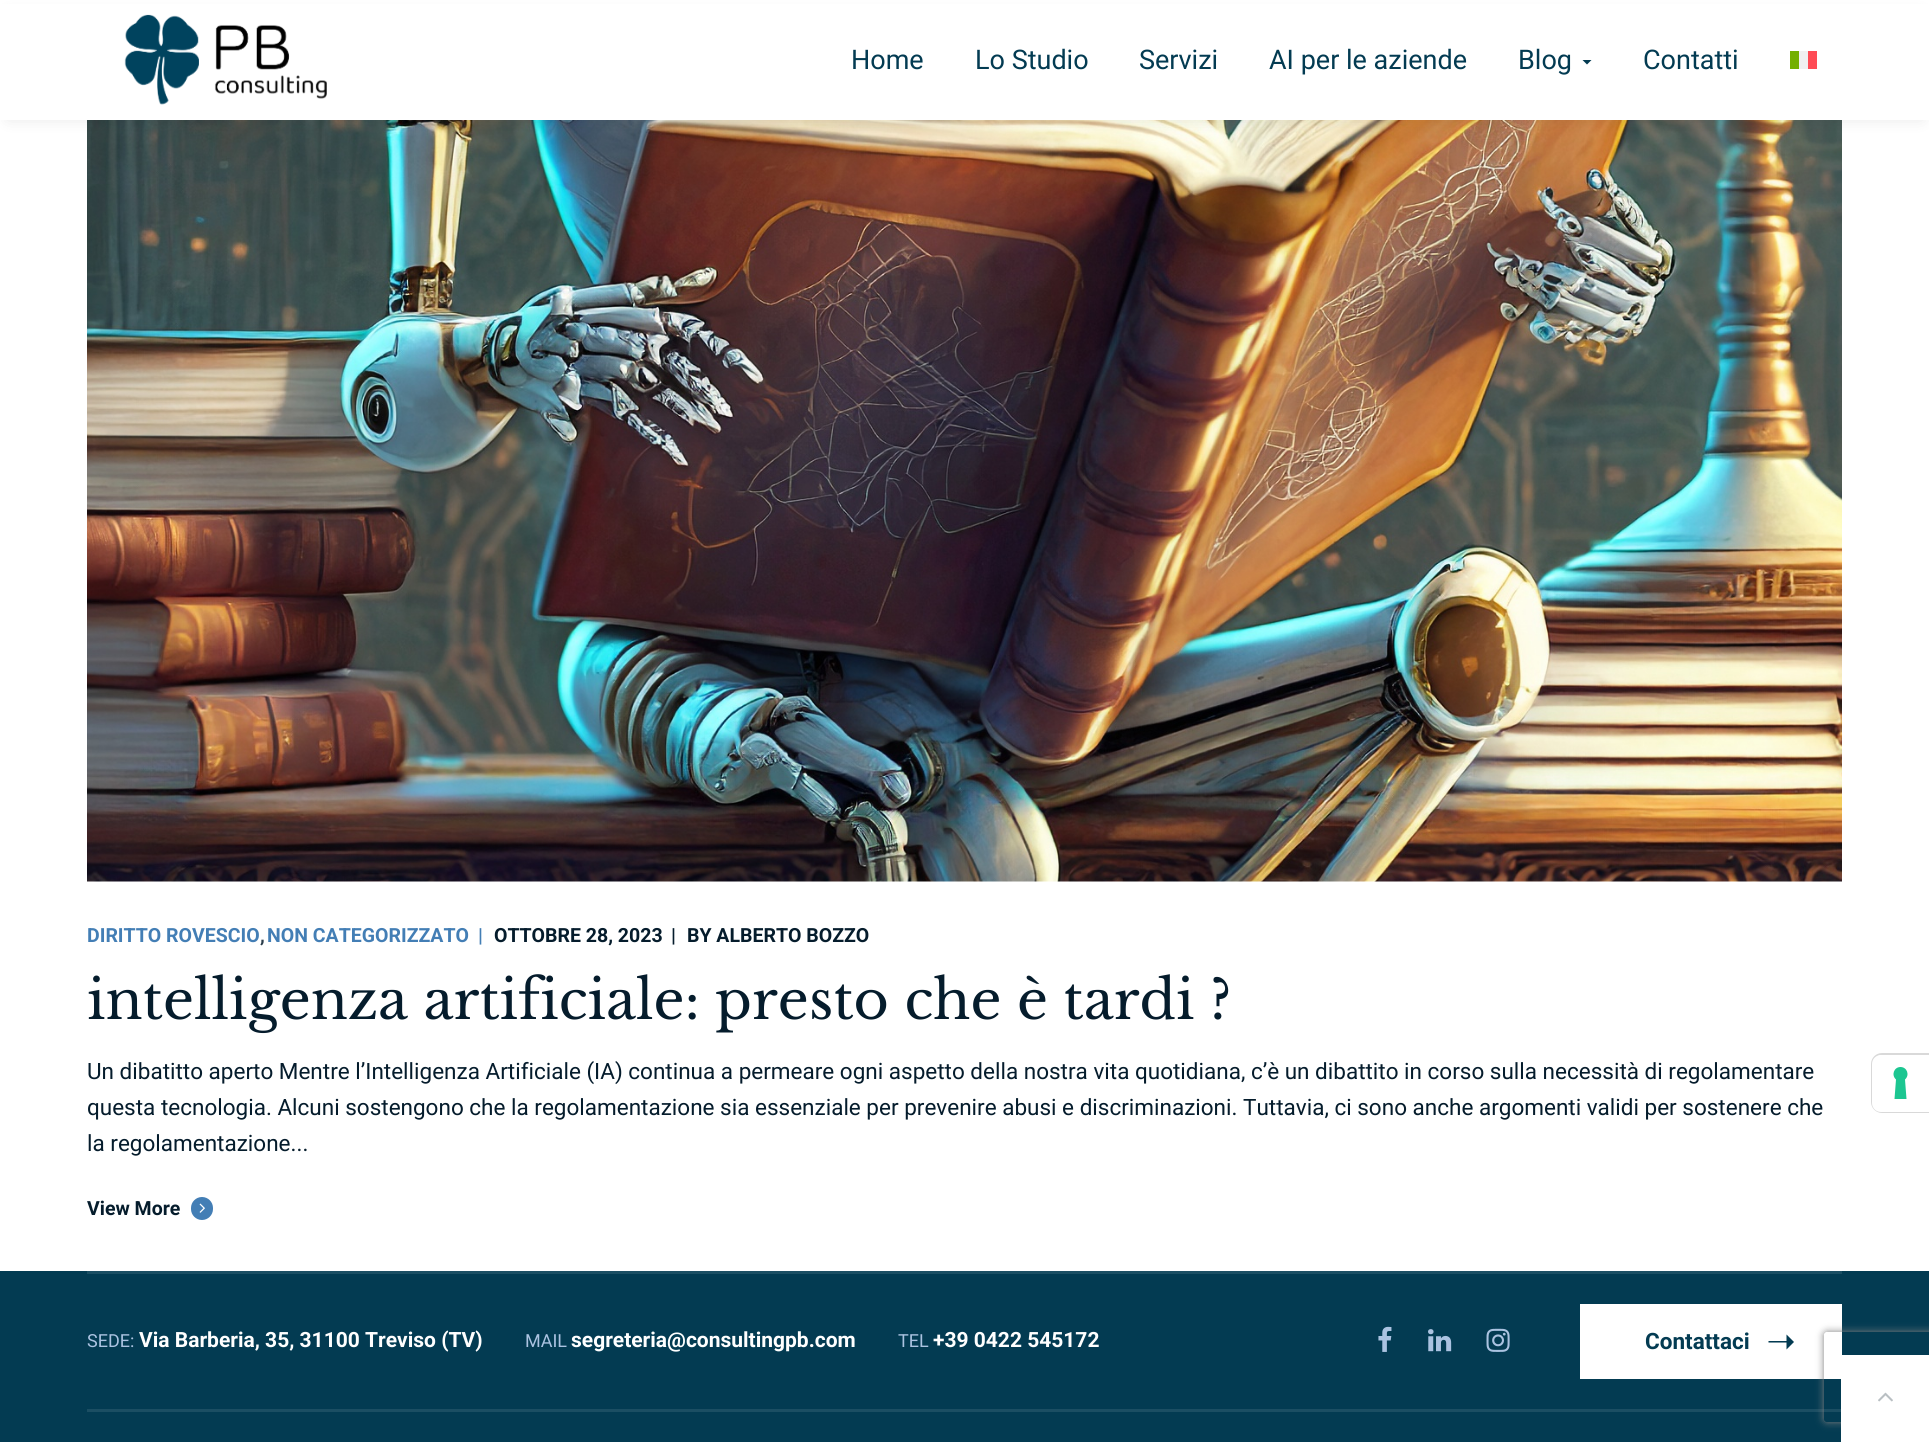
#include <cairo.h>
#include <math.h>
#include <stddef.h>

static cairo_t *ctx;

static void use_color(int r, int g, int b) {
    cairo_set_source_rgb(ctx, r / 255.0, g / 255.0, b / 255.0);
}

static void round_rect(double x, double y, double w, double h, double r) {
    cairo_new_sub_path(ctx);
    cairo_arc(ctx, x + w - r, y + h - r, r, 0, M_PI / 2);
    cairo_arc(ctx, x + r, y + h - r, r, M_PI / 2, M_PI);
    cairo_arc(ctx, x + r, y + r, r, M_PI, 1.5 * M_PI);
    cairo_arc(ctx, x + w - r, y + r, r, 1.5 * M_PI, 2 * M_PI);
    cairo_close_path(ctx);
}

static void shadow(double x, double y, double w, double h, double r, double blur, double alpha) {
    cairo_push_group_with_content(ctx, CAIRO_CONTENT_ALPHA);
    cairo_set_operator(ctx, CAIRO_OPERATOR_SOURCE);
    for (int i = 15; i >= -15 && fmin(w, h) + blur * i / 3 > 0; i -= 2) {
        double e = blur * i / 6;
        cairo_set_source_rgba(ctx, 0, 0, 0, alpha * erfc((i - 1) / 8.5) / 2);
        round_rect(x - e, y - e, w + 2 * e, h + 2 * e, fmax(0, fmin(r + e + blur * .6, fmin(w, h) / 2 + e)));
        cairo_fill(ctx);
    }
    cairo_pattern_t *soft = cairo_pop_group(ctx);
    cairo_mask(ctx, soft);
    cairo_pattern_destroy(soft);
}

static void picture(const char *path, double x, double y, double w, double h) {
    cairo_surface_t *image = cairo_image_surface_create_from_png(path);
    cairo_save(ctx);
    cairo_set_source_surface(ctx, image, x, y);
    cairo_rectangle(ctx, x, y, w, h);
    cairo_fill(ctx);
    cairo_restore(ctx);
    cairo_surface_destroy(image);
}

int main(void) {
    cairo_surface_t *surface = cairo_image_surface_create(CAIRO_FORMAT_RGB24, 1929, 1442);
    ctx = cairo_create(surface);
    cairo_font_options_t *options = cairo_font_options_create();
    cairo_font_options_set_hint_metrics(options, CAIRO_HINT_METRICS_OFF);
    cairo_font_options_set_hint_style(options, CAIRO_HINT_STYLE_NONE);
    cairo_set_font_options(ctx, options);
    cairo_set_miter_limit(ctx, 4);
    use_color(255, 255, 255);
    cairo_paint(ctx);
    picture("img2.png", 87, 120, 1755, 762);
    use_color(0, 0, 0);
    shadow(8, 14, 1914, 105, 0, 7.5, 0.1);
    use_color(255, 255, 255);
    cairo_rectangle(ctx, 0, 4, 1929, 116);
    cairo_fill(ctx);
    picture("img1.png", 124, 14, 203, 91);
    cairo_select_font_face(ctx, "Roboto", CAIRO_FONT_SLANT_NORMAL, CAIRO_FONT_WEIGHT_NORMAL);
    cairo_set_font_size(ctx, 27);
    use_color(3, 59, 82);
    cairo_move_to(ctx, 851, 69);
    cairo_show_text(ctx, "Home");
    cairo_move_to(ctx, 975, 69);
    cairo_show_text(ctx, "Lo Studio");
    cairo_move_to(ctx, 1139, 69);
    cairo_show_text(ctx, "Servizi");
    cairo_move_to(ctx, 1269, 69);
    cairo_show_text(ctx, "AI per le aziende");
    cairo_move_to(ctx, 1518, 69);
    cairo_show_text(ctx, "Blog");
    cairo_new_path(ctx);
    cairo_move_to(ctx, 1582.5, 60);
    cairo_line_to(ctx, 1591.5, 60);
    cairo_line_to(ctx, 1587, 64.5);
    cairo_close_path(ctx);
    cairo_fill(ctx);
    cairo_move_to(ctx, 1643, 69);
    cairo_show_text(ctx, "Contatti");
    use_color(115, 175, 0);
    cairo_rectangle(ctx, 1790, 51, 9, 18);
    cairo_fill(ctx);
    use_color(240, 240, 240);
    cairo_rectangle(ctx, 1799, 51, 9, 18);
    cairo_fill(ctx);
    use_color(255, 75, 85);
    cairo_rectangle(ctx, 1808, 51, 9, 18);
    cairo_fill(ctx);
    cairo_select_font_face(ctx, "Roboto", CAIRO_FONT_SLANT_NORMAL, CAIRO_FONT_WEIGHT_BOLD);
    cairo_set_font_size(ctx, 19.5);
    use_color(67, 126, 181);
    cairo_move_to(ctx, 87, 942);
    cairo_show_text(ctx, "DIRITTO ROVESCIO");
    use_color(43, 62, 76);
    cairo_move_to(ctx, 260, 942);
    cairo_show_text(ctx, ",");
    use_color(67, 126, 181);
    cairo_move_to(ctx, 267, 942);
    cairo_show_text(ctx, "NON CATEGORIZZATO");
    cairo_move_to(ctx, 478, 942);
    cairo_show_text(ctx, "|");
    use_color(5, 28, 44);
    cairo_move_to(ctx, 494, 942);
    cairo_show_text(ctx, "OTTOBRE 28, 2023");
    cairo_move_to(ctx, 671, 942);
    cairo_show_text(ctx, "|");
    cairo_move_to(ctx, 687, 942);
    cairo_show_text(ctx, "BY ALBERTO BOZZO");
    cairo_select_font_face(ctx, "Libre Baskerville", CAIRO_FONT_SLANT_NORMAL, CAIRO_FONT_WEIGHT_NORMAL);
    cairo_set_font_size(ctx, 54);
    cairo_move_to(ctx, 87, 1019);
    cairo_show_text(ctx, "intelligenza artificiale: presto che è tardi ?");
    cairo_select_font_face(ctx, "Roboto", CAIRO_FONT_SLANT_NORMAL, CAIRO_FONT_WEIGHT_NORMAL);
    cairo_set_font_size(ctx, 22.5);
    cairo_move_to(ctx, 87, 1079);
    cairo_show_text(ctx, "Un dibatitto aperto Mentre l’Intelligenza Artificiale (IA) continua a permeare ogni aspetto della nostra vita quotidiana, c’è un dibattito in corso sulla necessità di regolamentare");
    cairo_move_to(ctx, 87, 1115);
    cairo_show_text(ctx, "questa tecnologia. Alcuni sostengono che la regolamentazione sia essenziale per prevenire abusi e discriminazioni. Tuttavia, ci sono anche argomenti validi per sostenere che");
    cairo_move_to(ctx, 87, 1151);
    cairo_show_text(ctx, "la regolamentazione...");
    cairo_select_font_face(ctx, "Roboto", CAIRO_FONT_SLANT_NORMAL, CAIRO_FONT_WEIGHT_BOLD);
    cairo_set_font_size(ctx, 19.5);
    cairo_move_to(ctx, 87, 1215);
    cairo_show_text(ctx, "View More");
    use_color(67, 126, 181);
    round_rect(191, 1197, 22, 23, 11);
    cairo_fill(ctx);
    picture("img3.png", 199, 1203, 6, 10);
    cairo_new_path(ctx);
    cairo_move_to(ctx, 1882, 1054);
    cairo_line_to(ctx, 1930, 1054);
    cairo_line_to(ctx, 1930, 1112);
    cairo_line_to(ctx, 1882, 1112);
    cairo_curve_to(ctx, 1876.5, 1112, 1872, 1107.5, 1872, 1102);
    cairo_line_to(ctx, 1872, 1064);
    cairo_curve_to(ctx, 1872, 1058.5, 1876.5, 1054, 1882, 1054);
    cairo_close_path(ctx);
    use_color(217, 217, 217);
    cairo_stroke(ctx);
    use_color(255, 255, 255);
    cairo_new_path(ctx);
    cairo_move_to(ctx, 1881, 1055);
    cairo_line_to(ctx, 1929, 1055);
    cairo_line_to(ctx, 1929, 1112);
    cairo_line_to(ctx, 1881, 1112);
    cairo_curve_to(ctx, 1876, 1112, 1872, 1108, 1872, 1103);
    cairo_line_to(ctx, 1872, 1064);
    cairo_curve_to(ctx, 1872, 1059, 1876, 1055, 1881, 1055);
    cairo_close_path(ctx);
    cairo_fill(ctx);
    use_color(28, 198, 145);
    cairo_set_fill_rule(ctx, CAIRO_FILL_RULE_EVEN_ODD);
    cairo_new_path(ctx);
    cairo_move_to(ctx, 1900.5, 1067);
    cairo_curve_to(ctx, 1907, 1067, 1910, 1075, 1905, 1079.5);
    cairo_line_to(ctx, 1906.5, 1099);
    cairo_line_to(ctx, 1894.5, 1099);
    cairo_line_to(ctx, 1896, 1079.5);
    cairo_curve_to(ctx, 1891, 1075, 1894, 1067, 1900.5, 1067);
    cairo_close_path(ctx);
    cairo_fill(ctx);
    use_color(3, 59, 82);
    cairo_rectangle(ctx, 0, 1271, 1929, 171);
    cairo_fill(ctx);
    use_color(27, 78, 99);
    cairo_rectangle(ctx, 87, 1271, 1755, 3);
    cairo_fill(ctx);
    cairo_rectangle(ctx, 87, 1409, 1755, 3);
    cairo_fill(ctx);
    cairo_select_font_face(ctx, "Roboto", CAIRO_FONT_SLANT_NORMAL, CAIRO_FONT_WEIGHT_NORMAL);
    cairo_set_font_size(ctx, 18);
    use_color(171, 195, 225);
    cairo_move_to(ctx, 87, 1347);
    cairo_show_text(ctx, "SEDE:");
    cairo_select_font_face(ctx, "Roboto", CAIRO_FONT_SLANT_NORMAL, CAIRO_FONT_WEIGHT_BOLD);
    cairo_set_font_size(ctx, 21);
    use_color(255, 255, 255);
    cairo_move_to(ctx, 139, 1347);
    cairo_show_text(ctx, "Via Barberia, 35, 31100 Treviso (TV)");
    cairo_select_font_face(ctx, "Roboto", CAIRO_FONT_SLANT_NORMAL, CAIRO_FONT_WEIGHT_NORMAL);
    cairo_set_font_size(ctx, 18);
    use_color(171, 195, 225);
    cairo_move_to(ctx, 525, 1347);
    cairo_show_text(ctx, "MAIL");
    cairo_select_font_face(ctx, "Roboto", CAIRO_FONT_SLANT_NORMAL, CAIRO_FONT_WEIGHT_BOLD);
    cairo_set_font_size(ctx, 21);
    use_color(255, 255, 255);
    cairo_move_to(ctx, 571, 1347);
    cairo_show_text(ctx, "segreteria@consultingpb.com");
    cairo_select_font_face(ctx, "Roboto", CAIRO_FONT_SLANT_NORMAL, CAIRO_FONT_WEIGHT_NORMAL);
    cairo_set_font_size(ctx, 18);
    use_color(171, 195, 225);
    cairo_move_to(ctx, 898, 1347);
    cairo_show_text(ctx, "TEL");
    cairo_select_font_face(ctx, "Roboto", CAIRO_FONT_SLANT_NORMAL, CAIRO_FONT_WEIGHT_BOLD);
    cairo_set_font_size(ctx, 21);
    use_color(255, 255, 255);
    cairo_move_to(ctx, 933, 1347);
    cairo_show_text(ctx, "+39 0422 545172");
    picture("img4.png", 1378, 1326, 14, 26);
    picture("img5.png", 1428, 1329, 24, 23);
    picture("img6.png", 1486, 1328, 24, 24);
    cairo_rectangle(ctx, 1580, 1304, 262, 75);
    cairo_fill(ctx);
    cairo_set_font_size(ctx, 22.5);
    use_color(3, 59, 82);
    cairo_move_to(ctx, 1645, 1349);
    cairo_show_text(ctx, "Contattaci");
    cairo_set_fill_rule(ctx, CAIRO_FILL_RULE_WINDING);
    cairo_new_path(ctx);
    cairo_move_to(ctx, 1794, 1342);
    cairo_line_to(ctx, 1786.5, 1349.5);
    cairo_line_to(ctx, 1786.5, 1342.5);
    cairo_line_to(ctx, 1768.5, 1342.5);
    cairo_line_to(ctx, 1768.5, 1341);
    cairo_line_to(ctx, 1786.5, 1341);
    cairo_line_to(ctx, 1786.5, 1334.5);
    cairo_close_path(ctx);
    cairo_fill(ctx);
    cairo_save(ctx);
    cairo_set_fill_rule(ctx, CAIRO_FILL_RULE_EVEN_ODD);
    cairo_new_path(ctx);
    cairo_move_to(ctx, 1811, 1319);
    cairo_line_to(ctx, 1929, 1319);
    cairo_line_to(ctx, 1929, 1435);
    cairo_line_to(ctx, 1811, 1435);
    cairo_close_path(ctx);
    cairo_move_to(ctx, 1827, 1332);
    cairo_line_to(ctx, 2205, 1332);
    cairo_curve_to(ctx, 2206.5, 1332, 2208, 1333.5, 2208, 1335);
    cairo_line_to(ctx, 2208, 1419);
    cairo_curve_to(ctx, 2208, 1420.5, 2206.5, 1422, 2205, 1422);
    cairo_line_to(ctx, 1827, 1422);
    cairo_curve_to(ctx, 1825.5, 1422, 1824, 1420.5, 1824, 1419);
    cairo_line_to(ctx, 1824, 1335);
    cairo_curve_to(ctx, 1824, 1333.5, 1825.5, 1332, 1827, 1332);
    cairo_close_path(ctx);
    cairo_clip(ctx);
    use_color(128, 128, 128);
    shadow(1824, 1332, 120, 90, 3, 4, 1);
    cairo_restore(ctx);
    use_color(255, 255, 255);
    cairo_rectangle(ctx, 1841, 1355, 88, 87);
    cairo_fill(ctx);
    picture("img7.png", 1878, 1392, 15, 10);
    cairo_surface_write_to_png(surface, "result.png");
    cairo_font_options_destroy(options);
    cairo_destroy(ctx);
    cairo_surface_destroy(surface);
    return 0;
}
